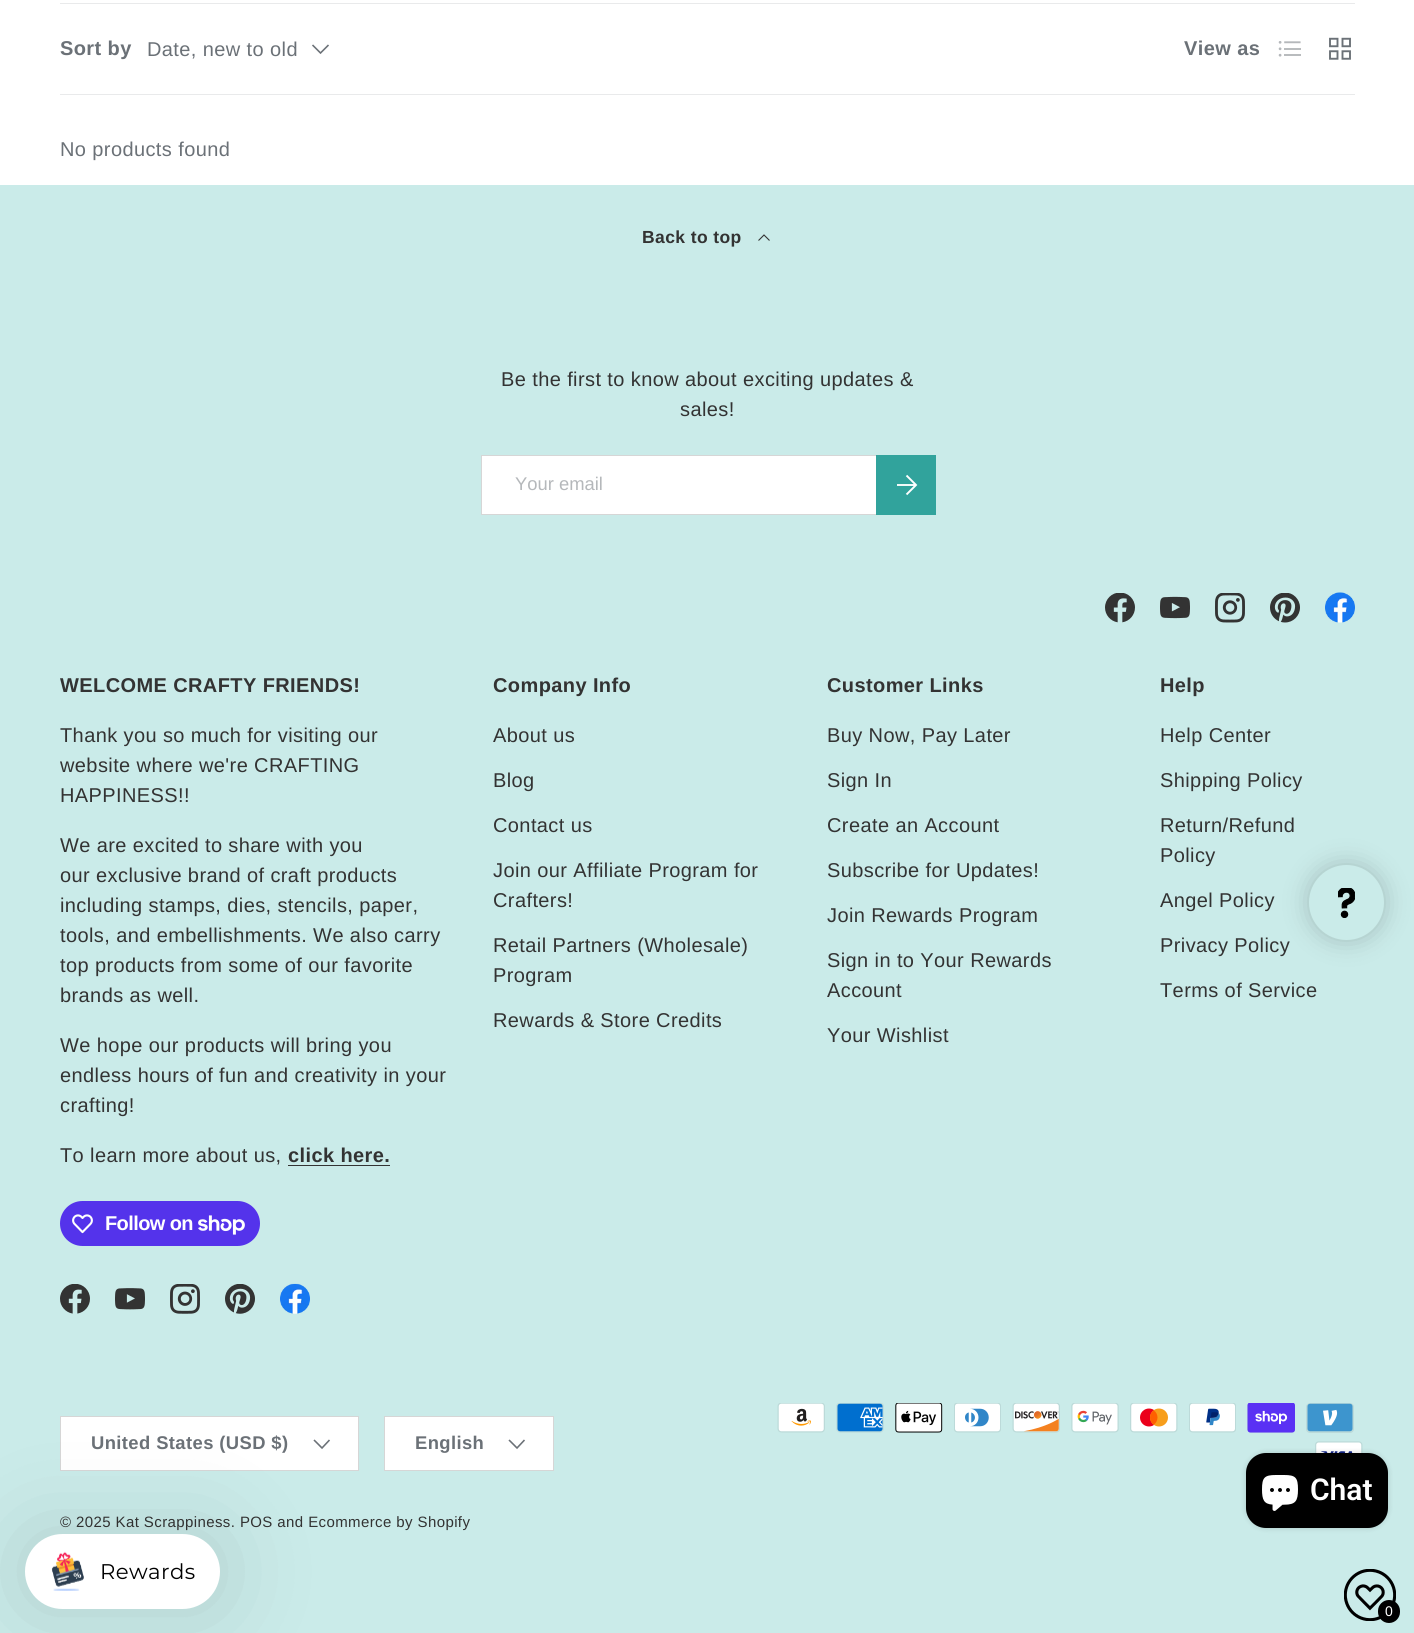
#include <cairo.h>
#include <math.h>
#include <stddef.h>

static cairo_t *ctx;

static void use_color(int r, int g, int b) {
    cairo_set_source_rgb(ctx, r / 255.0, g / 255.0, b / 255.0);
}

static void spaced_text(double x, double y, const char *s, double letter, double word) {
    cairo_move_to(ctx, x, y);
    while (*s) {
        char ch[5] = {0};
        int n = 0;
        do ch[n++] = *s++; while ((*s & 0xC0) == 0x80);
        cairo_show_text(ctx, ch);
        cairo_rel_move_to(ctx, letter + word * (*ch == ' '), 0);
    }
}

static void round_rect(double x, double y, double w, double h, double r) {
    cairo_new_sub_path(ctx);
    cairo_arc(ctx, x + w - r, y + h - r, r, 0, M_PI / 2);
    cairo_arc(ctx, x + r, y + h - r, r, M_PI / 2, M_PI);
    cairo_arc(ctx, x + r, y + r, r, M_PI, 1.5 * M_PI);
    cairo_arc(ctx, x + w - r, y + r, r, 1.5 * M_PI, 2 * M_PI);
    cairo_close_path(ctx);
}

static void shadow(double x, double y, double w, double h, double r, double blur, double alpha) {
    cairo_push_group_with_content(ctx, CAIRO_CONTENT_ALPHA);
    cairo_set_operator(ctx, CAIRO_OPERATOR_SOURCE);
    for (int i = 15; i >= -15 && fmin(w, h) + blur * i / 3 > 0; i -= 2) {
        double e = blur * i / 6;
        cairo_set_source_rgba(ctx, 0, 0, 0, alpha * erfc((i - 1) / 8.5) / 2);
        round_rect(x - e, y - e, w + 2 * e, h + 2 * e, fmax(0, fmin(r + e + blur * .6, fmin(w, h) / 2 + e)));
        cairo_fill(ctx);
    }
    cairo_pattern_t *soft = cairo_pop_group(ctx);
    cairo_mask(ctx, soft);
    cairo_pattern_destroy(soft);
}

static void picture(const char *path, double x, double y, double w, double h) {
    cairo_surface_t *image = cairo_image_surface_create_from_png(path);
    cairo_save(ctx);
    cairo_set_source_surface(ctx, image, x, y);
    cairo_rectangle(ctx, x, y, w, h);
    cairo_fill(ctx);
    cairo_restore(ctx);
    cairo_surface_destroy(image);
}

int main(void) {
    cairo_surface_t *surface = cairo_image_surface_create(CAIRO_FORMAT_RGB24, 1414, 1633);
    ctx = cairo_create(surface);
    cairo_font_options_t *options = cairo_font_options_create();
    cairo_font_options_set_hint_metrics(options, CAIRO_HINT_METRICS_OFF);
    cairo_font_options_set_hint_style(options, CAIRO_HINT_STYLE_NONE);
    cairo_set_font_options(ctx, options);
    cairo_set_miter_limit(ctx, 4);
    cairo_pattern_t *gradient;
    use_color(255, 255, 255);
    cairo_paint(ctx);
    use_color(233, 234, 235);
    cairo_rectangle(ctx, 60, 3, 1295, 1);
    cairo_fill(ctx);
    cairo_rectangle(ctx, 60, 94, 1295, 1);
    cairo_fill(ctx);
    cairo_select_font_face(ctx, "Liberation Sans", CAIRO_FONT_SLANT_NORMAL, CAIRO_FONT_WEIGHT_BOLD);
    cairo_set_font_size(ctx, 20);
    use_color(107, 113, 119);
    spaced_text(60, 55, "Sort by", 0.4, 0);
    cairo_select_font_face(ctx, "Liberation Sans", CAIRO_FONT_SLANT_NORMAL, CAIRO_FONT_WEIGHT_NORMAL);
    spaced_text(147, 56, "Date, new to old", 0.4, 0);
    cairo_new_path(ctx);
    cairo_move_to(ctx, 328.5, 45);
    cairo_line_to(ctx, 320.5, 53);
    cairo_line_to(ctx, 312.5, 45);
    cairo_set_line_width(ctx, 1.6);
    cairo_stroke(ctx);
    cairo_select_font_face(ctx, "Liberation Sans", CAIRO_FONT_SLANT_NORMAL, CAIRO_FONT_WEIGHT_BOLD);
    spaced_text(1184, 55, "View as", 0.4, 0);
    picture("img1.png", 1278, 41, 23, 16);
    picture("img2.png", 1329, 37, 22, 23);
    cairo_select_font_face(ctx, "Liberation Sans", CAIRO_FONT_SLANT_NORMAL, CAIRO_FONT_WEIGHT_NORMAL);
    spaced_text(60, 156, "No products found", 0.4, 0);
    use_color(202, 235, 233);
    cairo_rectangle(ctx, 0, 185, 1414, 1448);
    cairo_fill(ctx);
    cairo_select_font_face(ctx, "Liberation Sans", CAIRO_FONT_SLANT_NORMAL, CAIRO_FONT_WEIGHT_BOLD);
    cairo_set_font_size(ctx, 17.5);
    use_color(51, 51, 51);
    spaced_text(642, 243, "Back to top", 0.4, 0);
    cairo_new_path(ctx);
    cairo_move_to(ctx, 758.5, 240.5);
    cairo_line_to(ctx, 764, 235);
    cairo_line_to(ctx, 769.5, 240.5);
    cairo_set_line_width(ctx, 1.1);
    cairo_stroke(ctx);
    cairo_select_font_face(ctx, "Liberation Sans", CAIRO_FONT_SLANT_NORMAL, CAIRO_FONT_WEIGHT_NORMAL);
    cairo_set_font_size(ctx, 20);
    spaced_text(501, 386, "Be the first to know about exciting updates &", 0.4, 0);
    spaced_text(680, 416, "sales!", 0.4, 0);
    use_color(255, 255, 255);
    cairo_rectangle(ctx, 482, 456, 394, 58);
    cairo_fill(ctx);
    cairo_rectangle(ctx, 481.5, 455.5, 452, 59);
    use_color(214, 214, 214);
    cairo_set_line_width(ctx, 1);
    cairo_stroke(ctx);
    cairo_set_font_size(ctx, 18.4);
    use_color(181, 184, 187);
    cairo_move_to(ctx, 515, 490);
    cairo_show_text(ctx, "Your email");
    gradient = cairo_pattern_create_linear(754, 462, 938, 508);
    cairo_pattern_add_color_stop_rgba(gradient, 0.6, 0.357, 0.714, 0.69, 1);
    cairo_pattern_add_color_stop_rgba(gradient, 0.6, 0.192, 0.639, 0.612, 1);
    cairo_pattern_add_color_stop_rgba(gradient, 1, 0.192, 0.639, 0.612, 1);
    cairo_set_source(ctx, gradient);
    cairo_pattern_destroy(gradient);
    cairo_rectangle(ctx, 876, 455, 60, 60);
    cairo_fill(ctx);
    cairo_new_path(ctx);
    cairo_move_to(ctx, 897, 485);
    cairo_line_to(ctx, 915.5, 485);
    cairo_move_to(ctx, 906.5, 475.5);
    cairo_line_to(ctx, 916, 485);
    cairo_line_to(ctx, 906.5, 494.5);
    use_color(255, 255, 255);
    cairo_set_line_width(ctx, 1.9);
    cairo_stroke(ctx);
    picture("img3.png", 1105, 593, 30, 30);
    picture("img4.png", 1160, 596, 30, 23);
    picture("img5.png", 1215, 593, 30, 30);
    picture("img6.png", 1270, 593, 30, 30);
    picture("img7.png", 1325, 592, 30, 31);
    cairo_select_font_face(ctx, "Liberation Sans", CAIRO_FONT_SLANT_NORMAL, CAIRO_FONT_WEIGHT_BOLD);
    cairo_set_font_size(ctx, 20);
    use_color(51, 51, 51);
    spaced_text(60, 692, "WELCOME CRAFTY FRIENDS!", 0.4, 0);
    cairo_select_font_face(ctx, "Liberation Sans", CAIRO_FONT_SLANT_NORMAL, CAIRO_FONT_WEIGHT_NORMAL);
    spaced_text(60, 742, "Thank you so much for visiting our", 0.4, 0);
    spaced_text(60, 772, "website where we're CRAFTING", 0.4, 0);
    spaced_text(60, 802, "HAPPINESS!!", 0.4, 0);
    spaced_text(60, 852, "We are excited to share with you", 0.4, 0);
    spaced_text(60, 882, "our exclusive brand of craft products", 0.4, 0);
    spaced_text(60, 912, "including stamps, dies, stencils, paper,", 0.4, 0);
    spaced_text(60, 942, "tools, and embellishments. We also carry", 0.4, 0);
    spaced_text(60, 972, "top products from some of our favorite", 0.4, 0);
    spaced_text(60, 1002, "brands as well.", 0.4, 0);
    spaced_text(60, 1052, "We hope our products will bring you", 0.4, 0);
    spaced_text(60, 1082, "endless hours of fun and creativity in your", 0.4, 0);
    spaced_text(60, 1112, "crafting!", 0.4, 0);
    spaced_text(60, 1162, "To learn more about us,", 0.4, 0);
    cairo_select_font_face(ctx, "Liberation Sans", CAIRO_FONT_SLANT_NORMAL, CAIRO_FONT_WEIGHT_BOLD);
    spaced_text(288, 1162, "click here.", 0.4, 0);
    cairo_rectangle(ctx, 288, 1165, 102, 1);
    cairo_fill(ctx);
    use_color(84, 51, 235);
    round_rect(60, 1201, 200, 45, 22.5);
    cairo_fill(ctx);
    picture("img8.png", 72, 1214, 21, 20);
    use_color(255, 255, 255);
    spaced_text(105, 1230, "Follow on", -0.6, 0);
    picture("img9.png", 198, 1215, 47, 20);
    picture("img10.png", 60, 1284, 30, 30);
    picture("img11.png", 115, 1288, 30, 22);
    picture("img12.png", 170, 1284, 30, 30);
    picture("img13.png", 225, 1284, 30, 30);
    picture("img14.png", 280, 1283, 30, 31);
    use_color(51, 51, 51);
    spaced_text(493, 692, "Company Info", 0.4, 0);
    cairo_select_font_face(ctx, "Liberation Sans", CAIRO_FONT_SLANT_NORMAL, CAIRO_FONT_WEIGHT_NORMAL);
    spaced_text(493, 742, "About us", 0.4, 0);
    spaced_text(493, 787, "Blog", 0.4, 0);
    spaced_text(493, 832, "Contact us", 0.4, 0);
    spaced_text(493, 877, "Join our Affiliate Program for", 0.4, 0);
    spaced_text(493, 907, "Crafters!", 0.4, 0);
    spaced_text(493, 952, "Retail Partners (Wholesale)", 0.4, 0);
    spaced_text(493, 982, "Program", 0.4, 0);
    spaced_text(493, 1027, "Rewards & Store Credits", 0.4, 0);
    cairo_select_font_face(ctx, "Liberation Sans", CAIRO_FONT_SLANT_NORMAL, CAIRO_FONT_WEIGHT_BOLD);
    spaced_text(827, 692, "Customer Links", 0.4, 0);
    cairo_select_font_face(ctx, "Liberation Sans", CAIRO_FONT_SLANT_NORMAL, CAIRO_FONT_WEIGHT_NORMAL);
    spaced_text(827, 742, "Buy Now, Pay Later", 0.4, 0);
    spaced_text(827, 787, "Sign In", 0.4, 0);
    spaced_text(827, 832, "Create an Account", 0.4, 0);
    spaced_text(827, 877, "Subscribe for Updates!", 0.4, 0);
    spaced_text(827, 922, "Join Rewards Program", 0.4, 0);
    spaced_text(827, 967, "Sign in to Your Rewards", 0.4, 0);
    spaced_text(827, 997, "Account", 0.4, 0);
    spaced_text(827, 1042, "Your Wishlist", 0.4, 0);
    cairo_select_font_face(ctx, "Liberation Sans", CAIRO_FONT_SLANT_NORMAL, CAIRO_FONT_WEIGHT_BOLD);
    spaced_text(1160, 692, "Help", 0.4, 0);
    cairo_select_font_face(ctx, "Liberation Sans", CAIRO_FONT_SLANT_NORMAL, CAIRO_FONT_WEIGHT_NORMAL);
    spaced_text(1160, 742, "Help Center", 0.4, 0);
    spaced_text(1160, 787, "Shipping Policy", 0.4, 0);
    spaced_text(1160, 832, "Return/Refund", 0.4, 0);
    spaced_text(1160, 862, "Policy", 0.4, 0);
    spaced_text(1160, 907, "Angel Policy", 0.4, 0);
    spaced_text(1160, 952, "Privacy Policy", 0.4, 0);
    spaced_text(1160, 997, "Terms of Service", 0.4, 0);
    use_color(255, 255, 255);
    cairo_rectangle(ctx, 60.5, 1416.5, 298, 54);
    cairo_fill_preserve(ctx);
    use_color(214, 214, 214);
    cairo_set_line_width(ctx, 1);
    cairo_stroke(ctx);
    cairo_select_font_face(ctx, "Liberation Sans", CAIRO_FONT_SLANT_NORMAL, CAIRO_FONT_WEIGHT_BOLD);
    cairo_set_font_size(ctx, 18.4);
    use_color(107, 113, 119);
    spaced_text(91, 1449, "United States (USD $)", 0.4, 0);
    cairo_new_path(ctx);
    cairo_move_to(ctx, 329.5, 1440);
    cairo_line_to(ctx, 322, 1448);
    cairo_line_to(ctx, 314, 1440);
    cairo_set_line_width(ctx, 1.6);
    cairo_stroke(ctx);
    use_color(255, 255, 255);
    cairo_rectangle(ctx, 384.5, 1416.5, 169, 54);
    cairo_fill_preserve(ctx);
    use_color(214, 214, 214);
    cairo_set_line_width(ctx, 1);
    cairo_stroke(ctx);
    use_color(107, 113, 119);
    spaced_text(415, 1449, "English", 0.4, 0);
    cairo_new_path(ctx);
    cairo_move_to(ctx, 524.5, 1440);
    cairo_line_to(ctx, 517, 1448);
    cairo_line_to(ctx, 509, 1440);
    cairo_set_line_width(ctx, 1.6);
    cairo_stroke(ctx);
    picture("img15.png", 777, 1403, 48, 30);
    picture("img16.png", 836, 1403, 48, 30);
    picture("img17.png", 895, 1403, 48, 30);
    picture("img18.png", 954, 1403, 47, 30);
    picture("img19.png", 1012, 1403, 48, 30);
    picture("img20.png", 1071, 1403, 48, 30);
    picture("img21.png", 1130, 1403, 48, 30);
    picture("img22.png", 1189, 1403, 47, 30);
    picture("img23.png", 1247, 1403, 48, 30);
    picture("img24.png", 1306, 1403, 48, 30);
    picture("img25.png", 1315, 1441, 48, 12);
    cairo_select_font_face(ctx, "Liberation Sans", CAIRO_FONT_SLANT_NORMAL, CAIRO_FONT_WEIGHT_NORMAL);
    cairo_set_font_size(ctx, 15);
    use_color(51, 51, 51);
    spaced_text(60, 1527, "© 2025 Kat Scrappiness. POS and Ecommerce by Shopify", 0.4, 0);
    use_color(0, 0, 0);
    shadow(1309, 865, 75, 75, 37.5, 12.5, 0.2);
    use_color(202, 235, 233);
    cairo_arc(ctx, 1346.5, 902.5, 37.5, 0, 2 * M_PI);
    cairo_fill(ctx);
    picture("img26.png", 1338, 888, 17, 30);
    use_color(0, 0, 0);
    shadow(1246, 1453, 142, 75, 20, 3, 0.15);
    use_color(0, 0, 0);
    round_rect(1246, 1453, 142, 75, 20);
    cairo_fill(ctx);
    picture("img27.png", 1262, 1475, 36, 36);
    cairo_select_font_face(ctx, "Roboto SemiBold", CAIRO_FONT_SLANT_NORMAL, CAIRO_FONT_WEIGHT_NORMAL);
    cairo_set_font_size(ctx, 30);
    use_color(255, 255, 255);
    cairo_move_to(ctx, 1310, 1500);
    cairo_show_text(ctx, "Chat");
    use_color(0, 0, 0);
    shadow(25, 1534, 195, 75, 37.5, 50, 0.12);
    use_color(255, 255, 255);
    round_rect(25, 1534, 195, 75, 37.5);
    cairo_fill(ctx);
    picture("img28.png", 51, 1551, 33, 40);
    cairo_select_font_face(ctx, "Montserrat", CAIRO_FONT_SLANT_NORMAL, CAIRO_FONT_WEIGHT_NORMAL);
    cairo_set_font_size(ctx, 21.25);
    use_color(0, 0, 0);
    spaced_text(100, 1579, "Rewards", 0.4, 0);
    picture("img29.png", 1344, 1569, 52, 52);
    round_rect(1378, 1600, 22, 23, 11);
    cairo_fill(ctx);
    cairo_select_font_face(ctx, "Liberation Sans", CAIRO_FONT_SLANT_NORMAL, CAIRO_FONT_WEIGHT_NORMAL);
    cairo_set_font_size(ctx, 14);
    use_color(255, 255, 255);
    spaced_text(1385, 1616, "0", 0.4, 0);
    cairo_surface_write_to_png(surface, "result.png");
    cairo_font_options_destroy(options);
    cairo_destroy(ctx);
    cairo_surface_destroy(surface);
    return 0;
}
